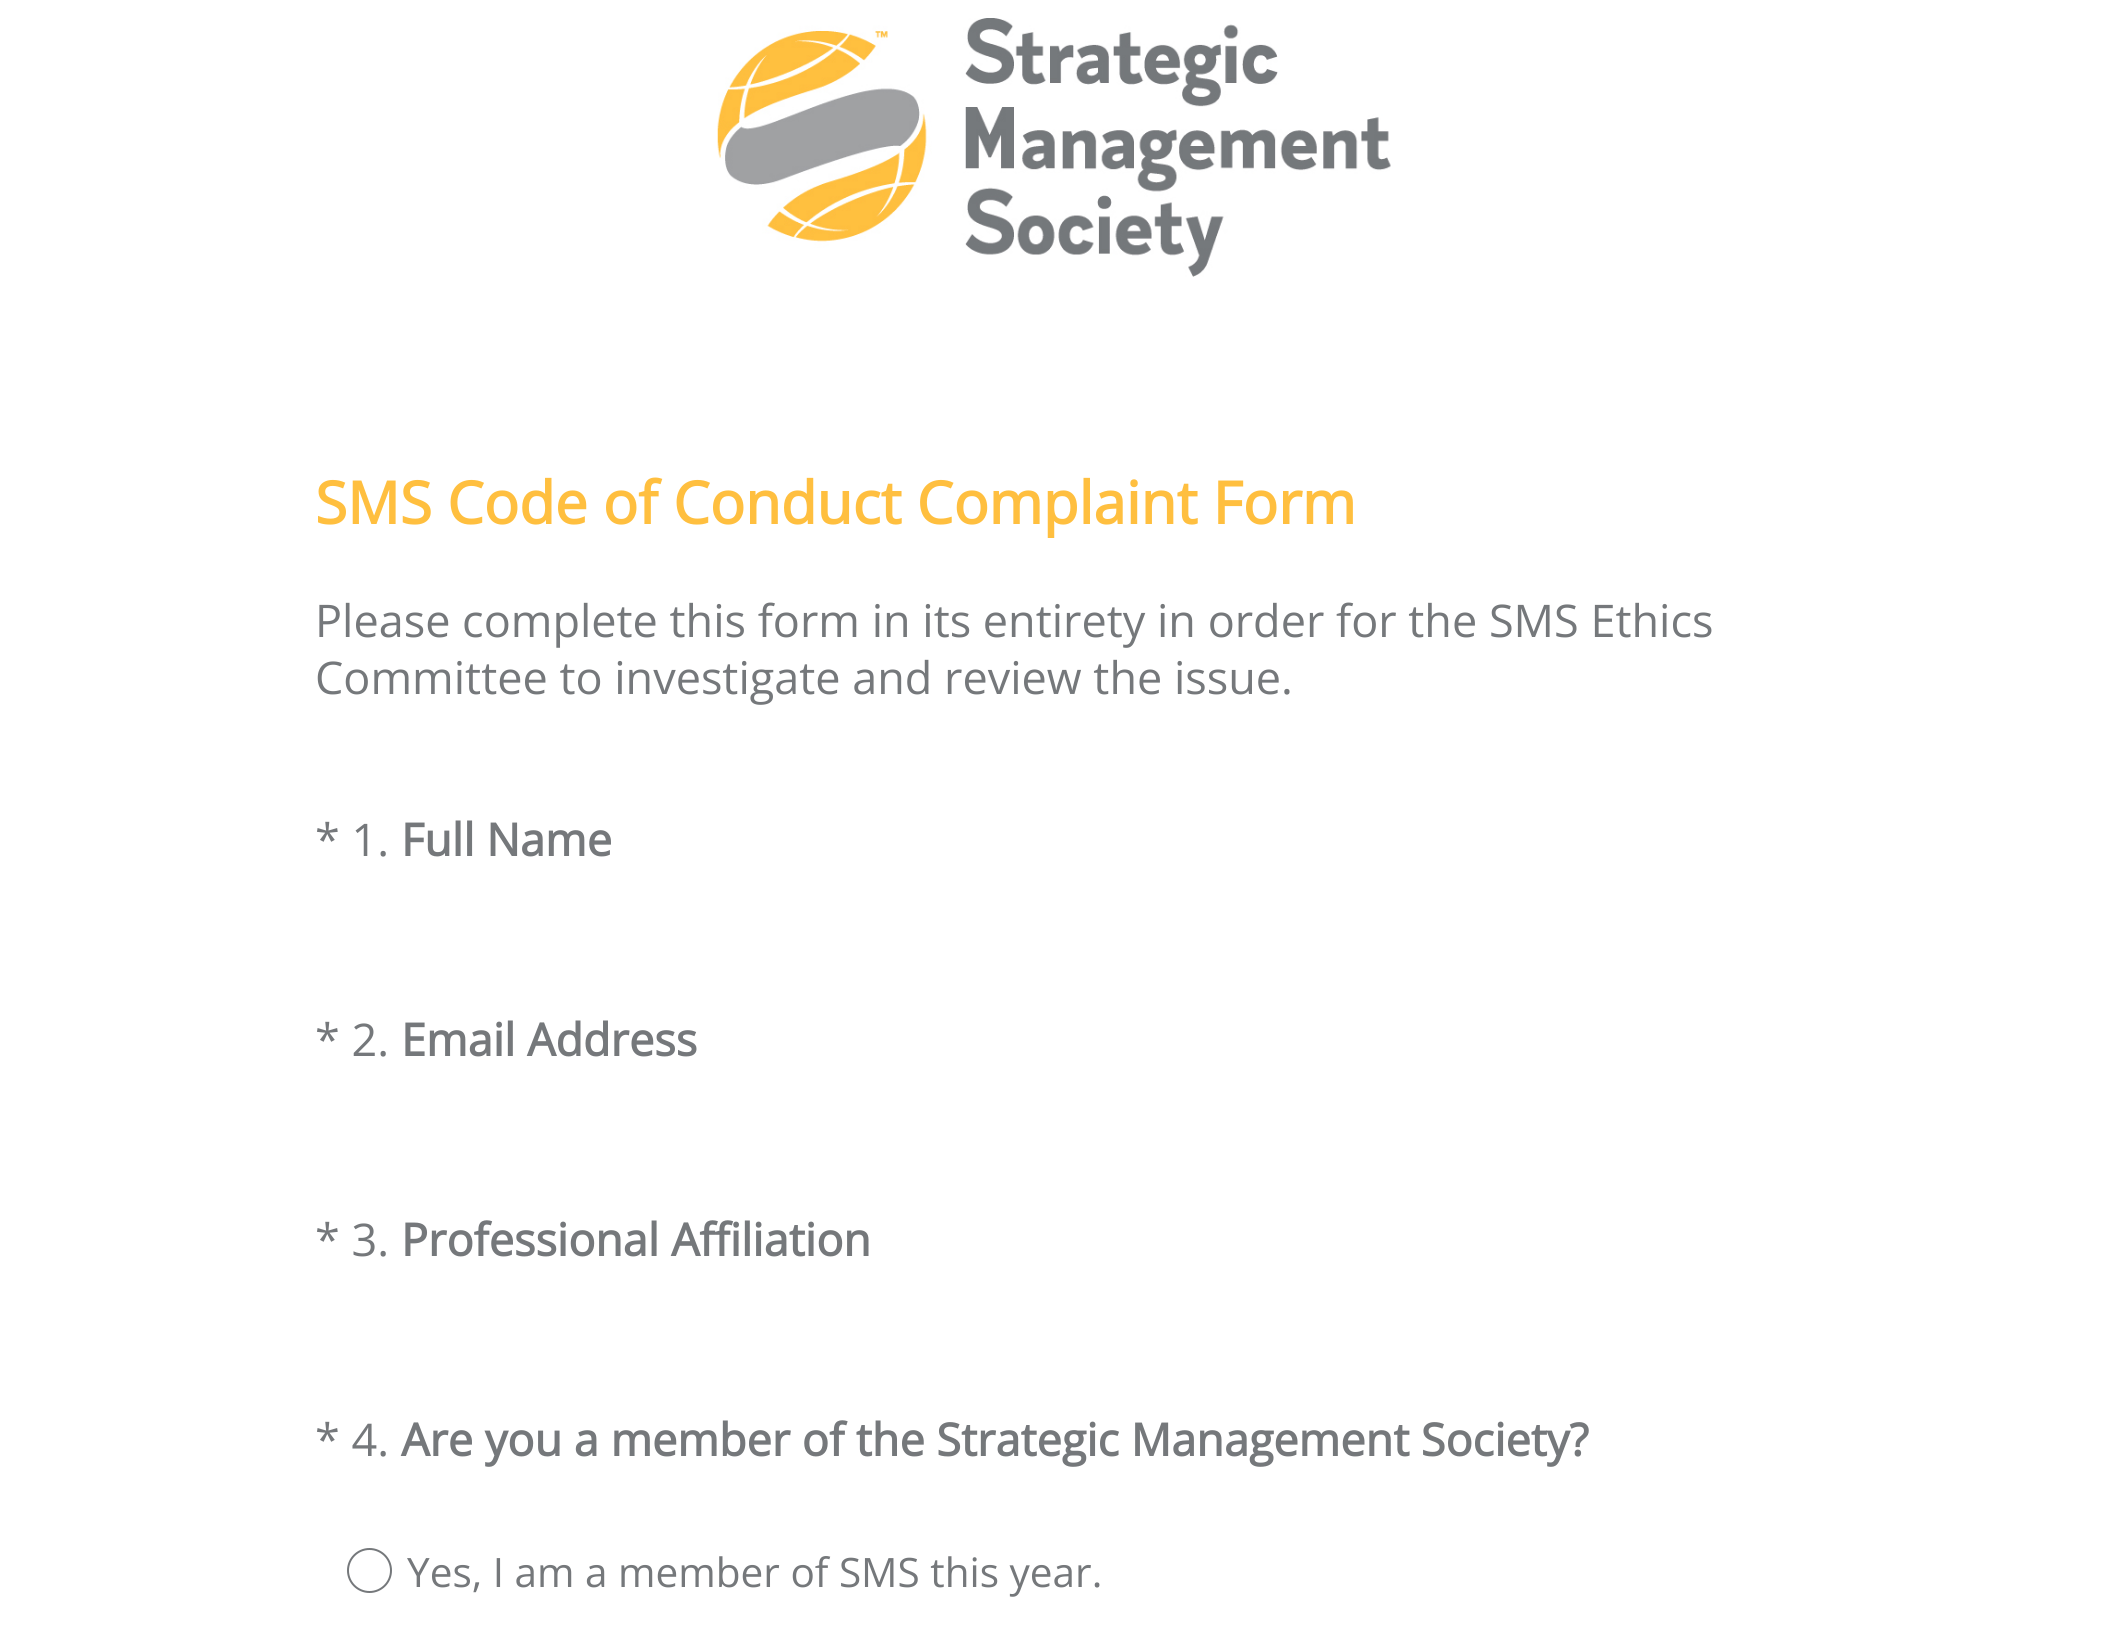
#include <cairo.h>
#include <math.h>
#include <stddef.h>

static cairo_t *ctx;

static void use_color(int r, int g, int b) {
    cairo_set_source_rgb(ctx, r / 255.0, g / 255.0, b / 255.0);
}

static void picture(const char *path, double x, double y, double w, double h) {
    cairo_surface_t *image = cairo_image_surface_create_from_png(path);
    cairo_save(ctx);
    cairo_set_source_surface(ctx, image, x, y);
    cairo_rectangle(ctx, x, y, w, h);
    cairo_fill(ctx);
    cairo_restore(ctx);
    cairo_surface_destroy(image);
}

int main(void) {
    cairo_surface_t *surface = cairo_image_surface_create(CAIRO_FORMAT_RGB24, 2107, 1641);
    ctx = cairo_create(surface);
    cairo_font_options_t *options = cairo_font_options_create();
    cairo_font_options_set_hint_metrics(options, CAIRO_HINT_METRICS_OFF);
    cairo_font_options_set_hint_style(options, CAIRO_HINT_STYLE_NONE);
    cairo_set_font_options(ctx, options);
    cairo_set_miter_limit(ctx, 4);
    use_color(255, 255, 255);
    cairo_paint(ctx);
    picture("img1.png", 717, 18, 674, 259);
    cairo_select_font_face(ctx, "Open Sans", CAIRO_FONT_SLANT_NORMAL, CAIRO_FONT_WEIGHT_BOLD);
    cairo_set_font_size(ctx, 58.5);
    use_color(255, 191, 63);
    cairo_move_to(ctx, 315, 524);
    cairo_show_text(ctx, "SMS Code of Conduct Complaint Form");
    cairo_select_font_face(ctx, "Open Sans", CAIRO_FONT_SLANT_NORMAL, CAIRO_FONT_WEIGHT_NORMAL);
    cairo_set_font_size(ctx, 45);
    use_color(117, 120, 123);
    cairo_move_to(ctx, 315, 637);
    cairo_show_text(ctx, "Please complete this form in its entirety in order for the SMS Ethics");
    cairo_move_to(ctx, 315, 694);
    cairo_show_text(ctx, "Committee to investigate and review the issue.");
    cairo_move_to(ctx, 315, 856);
    cairo_show_text(ctx, "* 1.");
    cairo_select_font_face(ctx, "Open Sans", CAIRO_FONT_SLANT_NORMAL, CAIRO_FONT_WEIGHT_BOLD);
    cairo_move_to(ctx, 401, 856);
    cairo_show_text(ctx, "Full Name");
    cairo_select_font_face(ctx, "Open Sans", CAIRO_FONT_SLANT_NORMAL, CAIRO_FONT_WEIGHT_NORMAL);
    cairo_move_to(ctx, 315, 1056);
    cairo_show_text(ctx, "* 2.");
    cairo_select_font_face(ctx, "Open Sans", CAIRO_FONT_SLANT_NORMAL, CAIRO_FONT_WEIGHT_BOLD);
    cairo_move_to(ctx, 401, 1056);
    cairo_show_text(ctx, "Email Address");
    cairo_select_font_face(ctx, "Open Sans", CAIRO_FONT_SLANT_NORMAL, CAIRO_FONT_WEIGHT_NORMAL);
    cairo_move_to(ctx, 315, 1256);
    cairo_show_text(ctx, "* 3.");
    cairo_select_font_face(ctx, "Open Sans", CAIRO_FONT_SLANT_NORMAL, CAIRO_FONT_WEIGHT_BOLD);
    cairo_move_to(ctx, 401, 1256);
    cairo_show_text(ctx, "Professional Affiliation");
    cairo_select_font_face(ctx, "Open Sans", CAIRO_FONT_SLANT_NORMAL, CAIRO_FONT_WEIGHT_NORMAL);
    cairo_move_to(ctx, 315, 1456);
    cairo_show_text(ctx, "* 4.");
    cairo_select_font_face(ctx, "Open Sans", CAIRO_FONT_SLANT_NORMAL, CAIRO_FONT_WEIGHT_BOLD);
    cairo_move_to(ctx, 401, 1456);
    cairo_show_text(ctx, "Are you a member of the Strategic Management Society?");
    cairo_new_path(ctx);
    cairo_arc(ctx, 369.5, 1570.5, 21.5, 0, 2 * M_PI);
    cairo_stroke(ctx);
    cairo_select_font_face(ctx, "Open Sans", CAIRO_FONT_SLANT_NORMAL, CAIRO_FONT_WEIGHT_NORMAL);
    cairo_set_font_size(ctx, 40.5);
    cairo_move_to(ctx, 407, 1587);
    cairo_show_text(ctx, "Yes, I am a member of SMS this year.");
    cairo_surface_write_to_png(surface, "result.png");
    cairo_font_options_destroy(options);
    cairo_destroy(ctx);
    cairo_surface_destroy(surface);
    return 0;
}
